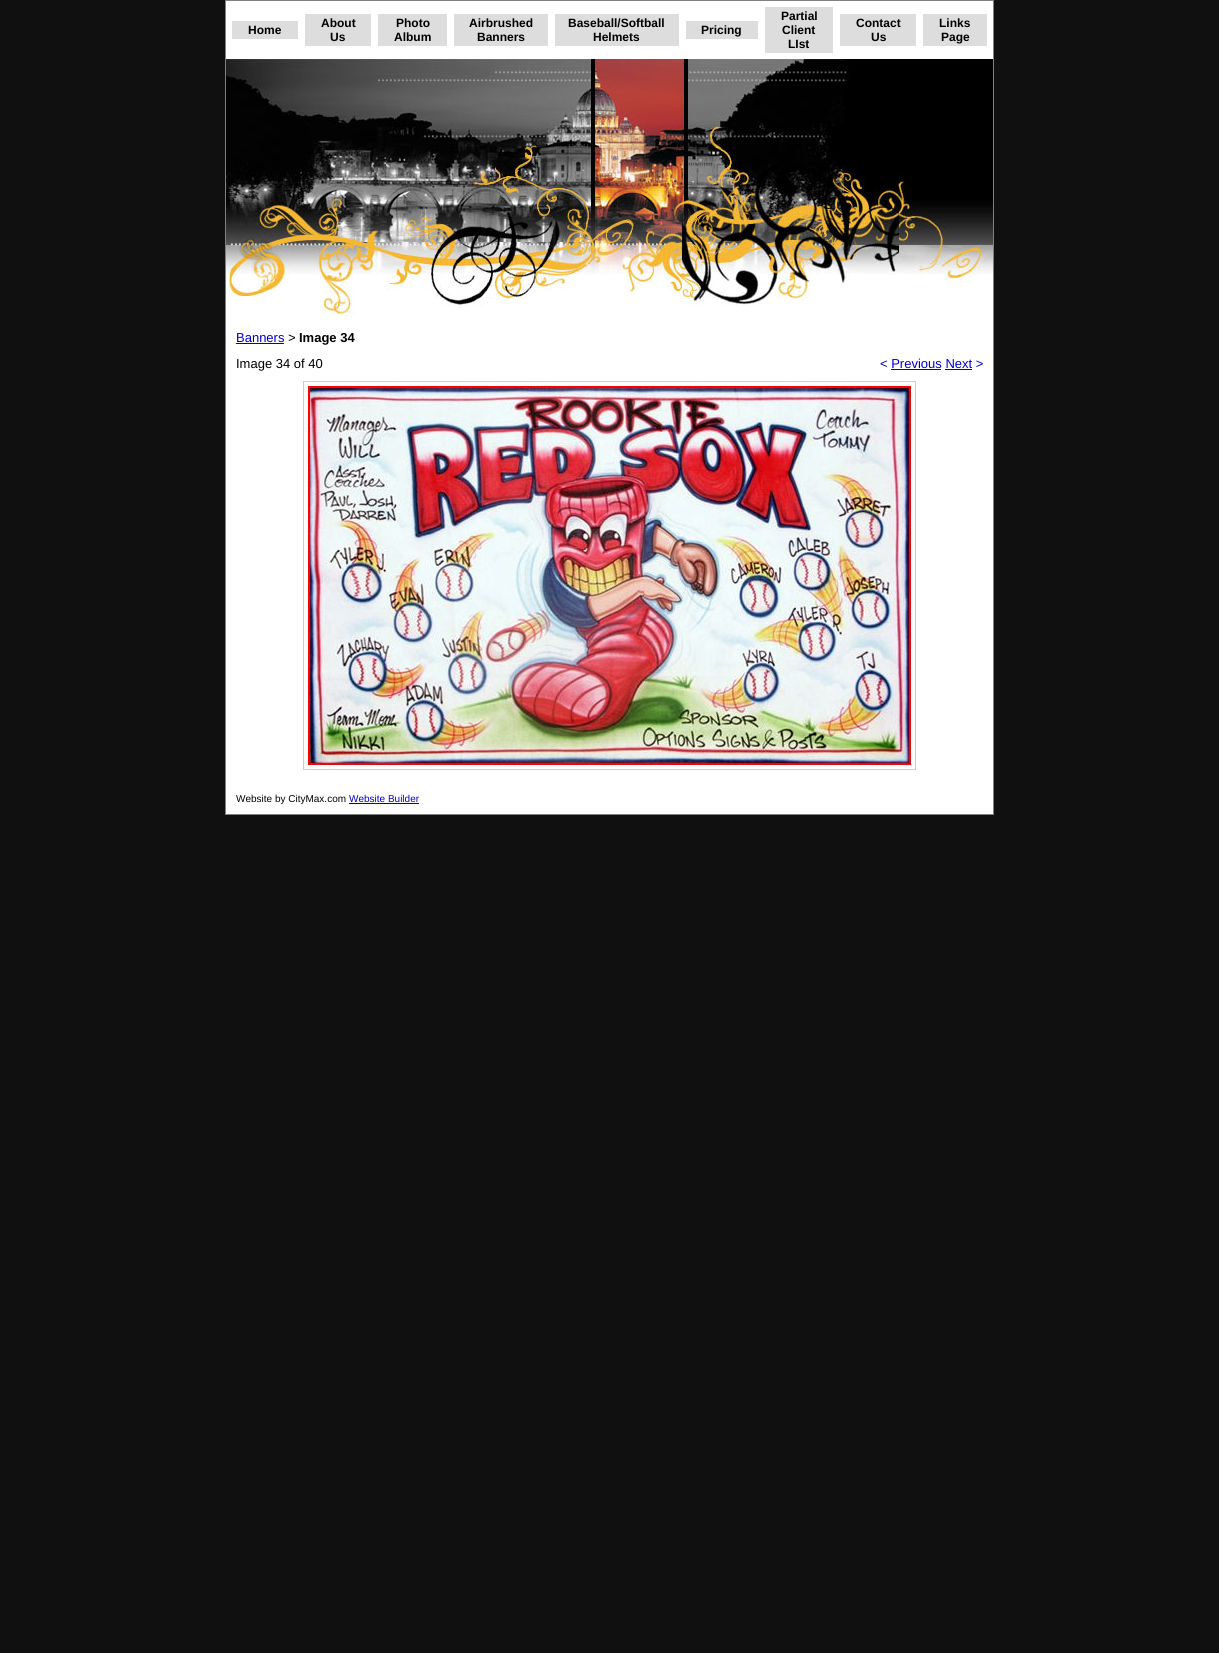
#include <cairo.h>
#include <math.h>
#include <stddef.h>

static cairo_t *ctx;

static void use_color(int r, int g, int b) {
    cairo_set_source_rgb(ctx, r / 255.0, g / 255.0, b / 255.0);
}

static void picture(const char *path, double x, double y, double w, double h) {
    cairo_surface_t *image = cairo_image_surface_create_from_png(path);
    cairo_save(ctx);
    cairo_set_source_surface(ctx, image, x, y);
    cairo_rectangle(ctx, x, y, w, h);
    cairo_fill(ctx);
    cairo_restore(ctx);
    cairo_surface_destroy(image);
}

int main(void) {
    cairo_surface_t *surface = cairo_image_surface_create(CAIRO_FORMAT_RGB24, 1219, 1653);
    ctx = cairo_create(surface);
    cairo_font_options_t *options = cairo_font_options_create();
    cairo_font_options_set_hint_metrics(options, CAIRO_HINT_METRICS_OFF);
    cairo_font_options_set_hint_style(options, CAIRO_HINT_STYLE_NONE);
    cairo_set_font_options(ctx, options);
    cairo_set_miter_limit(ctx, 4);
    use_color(16, 16, 16);
    cairo_paint(ctx);
    use_color(128, 128, 128);
    cairo_rectangle(ctx, 225, 0, 769, 815);
    cairo_fill(ctx);
    use_color(255, 255, 255);
    cairo_rectangle(ctx, 226, 1, 767, 58);
    cairo_fill(ctx);
    use_color(221, 221, 221);
    cairo_rectangle(ctx, 232, 21, 66, 18);
    cairo_fill(ctx);
    cairo_select_font_face(ctx, "Liberation Sans", CAIRO_FONT_SLANT_NORMAL, CAIRO_FONT_WEIGHT_BOLD);
    cairo_set_font_size(ctx, 12);
    use_color(0, 0, 0);
    cairo_move_to(ctx, 248, 34);
    cairo_show_text(ctx, "Home");
    use_color(221, 221, 221);
    cairo_rectangle(ctx, 305, 14, 66, 32);
    cairo_fill(ctx);
    use_color(0, 0, 0);
    cairo_move_to(ctx, 321, 27);
    cairo_show_text(ctx, "About");
    cairo_move_to(ctx, 330, 41);
    cairo_show_text(ctx, "Us");
    use_color(221, 221, 221);
    cairo_rectangle(ctx, 378, 14, 69, 32);
    cairo_fill(ctx);
    use_color(0, 0, 0);
    cairo_move_to(ctx, 396, 27);
    cairo_show_text(ctx, "Photo");
    cairo_move_to(ctx, 394, 41);
    cairo_show_text(ctx, "Album");
    use_color(221, 221, 221);
    cairo_rectangle(ctx, 454, 14, 94, 32);
    cairo_fill(ctx);
    use_color(0, 0, 0);
    cairo_move_to(ctx, 469, 27);
    cairo_show_text(ctx, "Airbrushed");
    cairo_move_to(ctx, 477, 41);
    cairo_show_text(ctx, "Banners");
    use_color(221, 221, 221);
    cairo_rectangle(ctx, 555, 14, 124, 32);
    cairo_fill(ctx);
    use_color(0, 0, 0);
    cairo_move_to(ctx, 568, 27);
    cairo_show_text(ctx, "Baseball/Softball");
    cairo_move_to(ctx, 593, 41);
    cairo_show_text(ctx, "Helmets");
    use_color(221, 221, 221);
    cairo_rectangle(ctx, 686, 21, 72, 18);
    cairo_fill(ctx);
    use_color(0, 0, 0);
    cairo_move_to(ctx, 701, 34);
    cairo_show_text(ctx, "Pricing");
    use_color(221, 221, 221);
    cairo_rectangle(ctx, 765, 7, 68, 46);
    cairo_fill(ctx);
    use_color(0, 0, 0);
    cairo_move_to(ctx, 781, 20);
    cairo_show_text(ctx, "Partial");
    cairo_move_to(ctx, 782, 34);
    cairo_show_text(ctx, "Client");
    cairo_move_to(ctx, 788, 48);
    cairo_show_text(ctx, "LIst");
    use_color(221, 221, 221);
    cairo_rectangle(ctx, 840, 14, 76, 32);
    cairo_fill(ctx);
    use_color(0, 0, 0);
    cairo_move_to(ctx, 856, 27);
    cairo_show_text(ctx, "Contact");
    cairo_move_to(ctx, 871, 41);
    cairo_show_text(ctx, "Us");
    use_color(221, 221, 221);
    cairo_rectangle(ctx, 923, 14, 64, 32);
    cairo_fill(ctx);
    use_color(0, 0, 0);
    cairo_move_to(ctx, 939, 27);
    cairo_show_text(ctx, "Links");
    cairo_move_to(ctx, 941, 41);
    cairo_show_text(ctx, "Page");
    picture("img1.png", 226, 59, 767, 261);
    use_color(255, 255, 255);
    cairo_rectangle(ctx, 226, 320, 767, 494);
    cairo_fill(ctx);
    cairo_select_font_face(ctx, "Liberation Sans", CAIRO_FONT_SLANT_NORMAL, CAIRO_FONT_WEIGHT_NORMAL);
    cairo_set_font_size(ctx, 13);
    use_color(0, 0, 204);
    cairo_move_to(ctx, 236, 342);
    cairo_show_text(ctx, "Banners");
    cairo_rectangle(ctx, 236, 343, 48, 1);
    cairo_fill(ctx);
    cairo_select_font_face(ctx, "Liberation Mono", CAIRO_FONT_SLANT_NORMAL, CAIRO_FONT_WEIGHT_NORMAL);
    use_color(0, 0, 0);
    cairo_move_to(ctx, 288, 342);
    cairo_show_text(ctx, ">");
    cairo_select_font_face(ctx, "Liberation Sans", CAIRO_FONT_SLANT_NORMAL, CAIRO_FONT_WEIGHT_BOLD);
    cairo_move_to(ctx, 299, 342);
    cairo_show_text(ctx, "Image 34");
    cairo_select_font_face(ctx, "Liberation Sans", CAIRO_FONT_SLANT_NORMAL, CAIRO_FONT_WEIGHT_NORMAL);
    cairo_move_to(ctx, 236, 368);
    cairo_show_text(ctx, "Image 34 of 40");
    use_color(0, 0, 204);
    cairo_move_to(ctx, 880, 368);
    cairo_show_text(ctx, "< Previous Next >");
    cairo_rectangle(ctx, 891, 369, 50, 1);
    cairo_fill(ctx);
    cairo_rectangle(ctx, 945, 369, 27, 1);
    cairo_fill(ctx);
    cairo_rectangle(ctx, 303.5, 381.5, 612, 388);
    use_color(204, 204, 204);
    cairo_set_line_width(ctx, 1);
    cairo_stroke(ctx);
    picture("img2.png", 308, 386, 603, 379);
    cairo_set_font_size(ctx, 10);
    use_color(0, 0, 0);
    cairo_move_to(ctx, 236, 802);
    cairo_show_text(ctx, "Website by CityMax.com");
    use_color(0, 0, 204);
    cairo_move_to(ctx, 349, 802);
    cairo_show_text(ctx, "Website Builder");
    cairo_rectangle(ctx, 349, 803, 70, 1);
    cairo_fill(ctx);
    cairo_surface_write_to_png(surface, "result.png");
    cairo_font_options_destroy(options);
    cairo_destroy(ctx);
    cairo_surface_destroy(surface);
    return 0;
}
